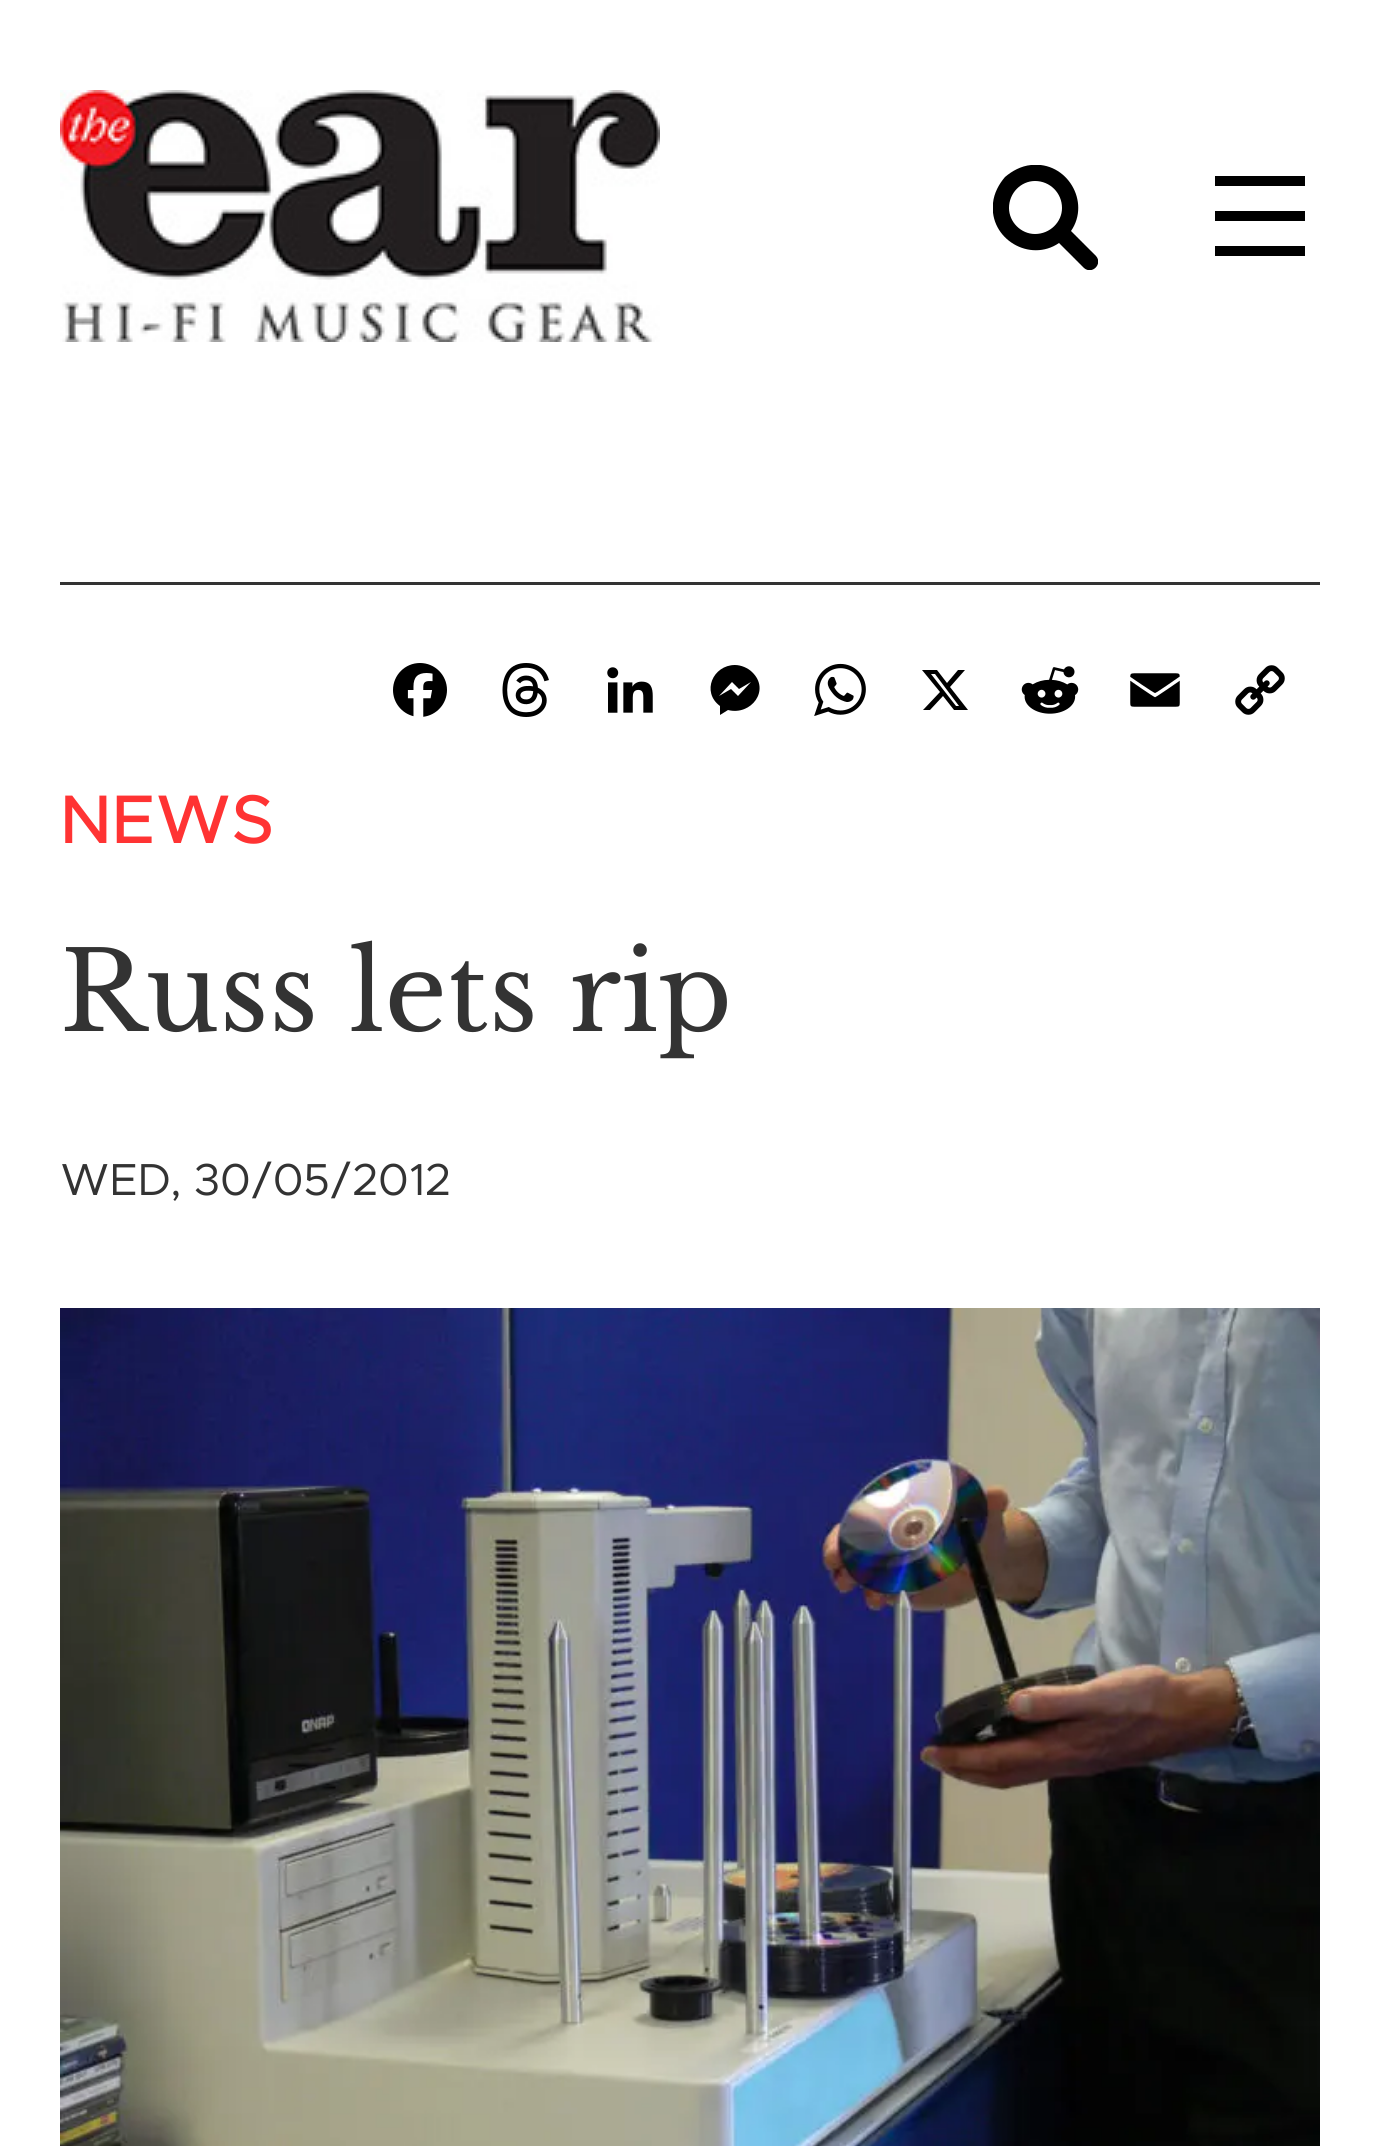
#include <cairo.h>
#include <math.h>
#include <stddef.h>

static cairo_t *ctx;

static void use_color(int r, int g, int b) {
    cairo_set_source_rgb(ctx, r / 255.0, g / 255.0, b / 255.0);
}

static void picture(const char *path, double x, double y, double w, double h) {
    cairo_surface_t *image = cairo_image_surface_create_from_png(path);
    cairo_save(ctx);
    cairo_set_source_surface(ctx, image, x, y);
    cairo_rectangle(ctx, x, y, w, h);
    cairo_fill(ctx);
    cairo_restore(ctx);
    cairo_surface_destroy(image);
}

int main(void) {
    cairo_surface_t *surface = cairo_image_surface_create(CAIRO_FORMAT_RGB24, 1379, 2146);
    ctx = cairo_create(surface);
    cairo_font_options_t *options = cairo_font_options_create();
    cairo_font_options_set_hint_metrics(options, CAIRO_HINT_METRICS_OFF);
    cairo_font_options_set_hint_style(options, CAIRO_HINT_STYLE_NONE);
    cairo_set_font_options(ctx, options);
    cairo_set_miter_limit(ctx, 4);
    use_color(255, 255, 255);
    cairo_paint(ctx);
    picture("img1.png", 60, 90, 600, 252);
    cairo_save(ctx);
    cairo_rectangle(ctx, 993, 165, 105, 105);
    cairo_clip(ctx);
    use_color(0, 0, 0);
    cairo_new_path(ctx);
    cairo_move_to(ctx, 1096, 256);
    cairo_line_to(ctx, 1071, 231);
    cairo_curve_to(ctx, 1091, 202, 1067, 161, 1031, 165);
    cairo_curve_to(ctx, 1021, 166, 1012, 171, 1005, 177);
    cairo_curve_to(ctx, 999, 184, 994, 193, 993, 203);
    cairo_curve_to(ctx, 989, 239, 1030, 263, 1059, 243);
    cairo_line_to(ctx, 1084, 268);
    cairo_curve_to(ctx, 1092, 275, 1103, 264, 1096, 256);
    cairo_close_path(ctx);
    cairo_move_to(ctx, 1009, 208);
    cairo_curve_to(ctx, 1009, 193, 1021, 181, 1035, 181);
    cairo_curve_to(ctx, 1050, 181, 1062, 193, 1062, 208);
    cairo_curve_to(ctx, 1062, 222, 1050, 234, 1035, 234);
    cairo_curve_to(ctx, 1021, 234, 1009, 222, 1009, 208);
    cairo_close_path(ctx);
    cairo_fill(ctx);
    cairo_restore(ctx);
    use_color(0, 0, 0);
    cairo_new_path(ctx);
    cairo_move_to(ctx, 1215, 176);
    cairo_line_to(ctx, 1305, 176);
    cairo_line_to(ctx, 1305, 186);
    cairo_line_to(ctx, 1215, 186);
    cairo_close_path(ctx);
    cairo_move_to(ctx, 1215, 211);
    cairo_line_to(ctx, 1305, 211);
    cairo_line_to(ctx, 1305, 221);
    cairo_line_to(ctx, 1215, 221);
    cairo_close_path(ctx);
    cairo_move_to(ctx, 1215, 246);
    cairo_line_to(ctx, 1305, 246);
    cairo_line_to(ctx, 1305, 256);
    cairo_line_to(ctx, 1215, 256);
    cairo_close_path(ctx);
    cairo_fill(ctx);
    use_color(51, 51, 51);
    cairo_rectangle(ctx, 60, 582, 1260, 3);
    cairo_fill(ctx);
    picture("img2.png", 393, 663, 54, 54);
    picture("img3.png", 502, 663, 47, 54);
    picture("img4.png", 607, 667, 46, 46);
    use_color(0, 0, 0);
    cairo_new_path(ctx);
    cairo_move_to(ctx, 735, 665);
    cairo_curve_to(ctx, 713, 665, 701, 692, 720, 706);
    cairo_line_to(ctx, 720, 715);
    cairo_line_to(ctx, 728, 710);
    cairo_curve_to(ctx, 751, 716, 771, 690, 752, 672);
    cairo_curve_to(ctx, 748, 668, 741, 665, 735, 665);
    cairo_move_to(ctx, 738, 696);
    cairo_line_to(ctx, 731, 689);
    cairo_line_to(ctx, 719, 696);
    cairo_line_to(ctx, 732, 682);
    cairo_line_to(ctx, 739, 689);
    cairo_line_to(ctx, 751, 682);
    cairo_close_path(ctx);
    cairo_fill(ctx);
    picture("img5.png", 814, 663, 52, 53);
    cairo_new_path(ctx);
    cairo_move_to(ctx, 958, 670);
    cairo_line_to(ctx, 965, 670);
    cairo_line_to(ctx, 950, 687);
    cairo_line_to(ctx, 968, 710);
    cairo_line_to(ctx, 954, 710);
    cairo_line_to(ctx, 943, 696);
    cairo_line_to(ctx, 930, 710);
    cairo_line_to(ctx, 923, 710);
    cairo_line_to(ctx, 940, 692);
    cairo_line_to(ctx, 922, 670);
    cairo_line_to(ctx, 937, 670);
    cairo_line_to(ctx, 947, 683);
    cairo_close_path(ctx);
    cairo_move_to(ctx, 956, 706);
    cairo_line_to(ctx, 959, 706);
    cairo_line_to(ctx, 935, 674);
    cairo_line_to(ctx, 931, 674);
    cairo_close_path(ctx);
    cairo_fill(ctx);
    picture("img6.png", 1021, 666, 58, 48);
    picture("img7.png", 1130, 673, 50, 34);
    picture("img8.png", 1235, 665, 50, 50);
    cairo_select_font_face(ctx, "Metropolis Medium", CAIRO_FONT_SLANT_NORMAL, CAIRO_FONT_WEIGHT_NORMAL);
    cairo_set_font_size(ctx, 69);
    use_color(255, 51, 51);
    cairo_move_to(ctx, 60, 843);
    cairo_show_text(ctx, "NEWS");
    cairo_select_font_face(ctx, "Libre Baskerville", CAIRO_FONT_SLANT_NORMAL, CAIRO_FONT_WEIGHT_NORMAL);
    cairo_set_font_size(ctx, 109);
    use_color(51, 51, 51);
    cairo_move_to(ctx, 60, 1031);
    cairo_show_text(ctx, "Russ lets rip");
    cairo_select_font_face(ctx, "Metropolis", CAIRO_FONT_SLANT_NORMAL, CAIRO_FONT_WEIGHT_NORMAL);
    cairo_set_font_size(ctx, 45);
    cairo_move_to(ctx, 60, 1195);
    cairo_show_text(ctx, "WED, 30/05/2012");
    picture("img9.png", 60, 1308, 1260, 838);
    cairo_surface_write_to_png(surface, "result.png");
    cairo_font_options_destroy(options);
    cairo_destroy(ctx);
    cairo_surface_destroy(surface);
    return 0;
}
